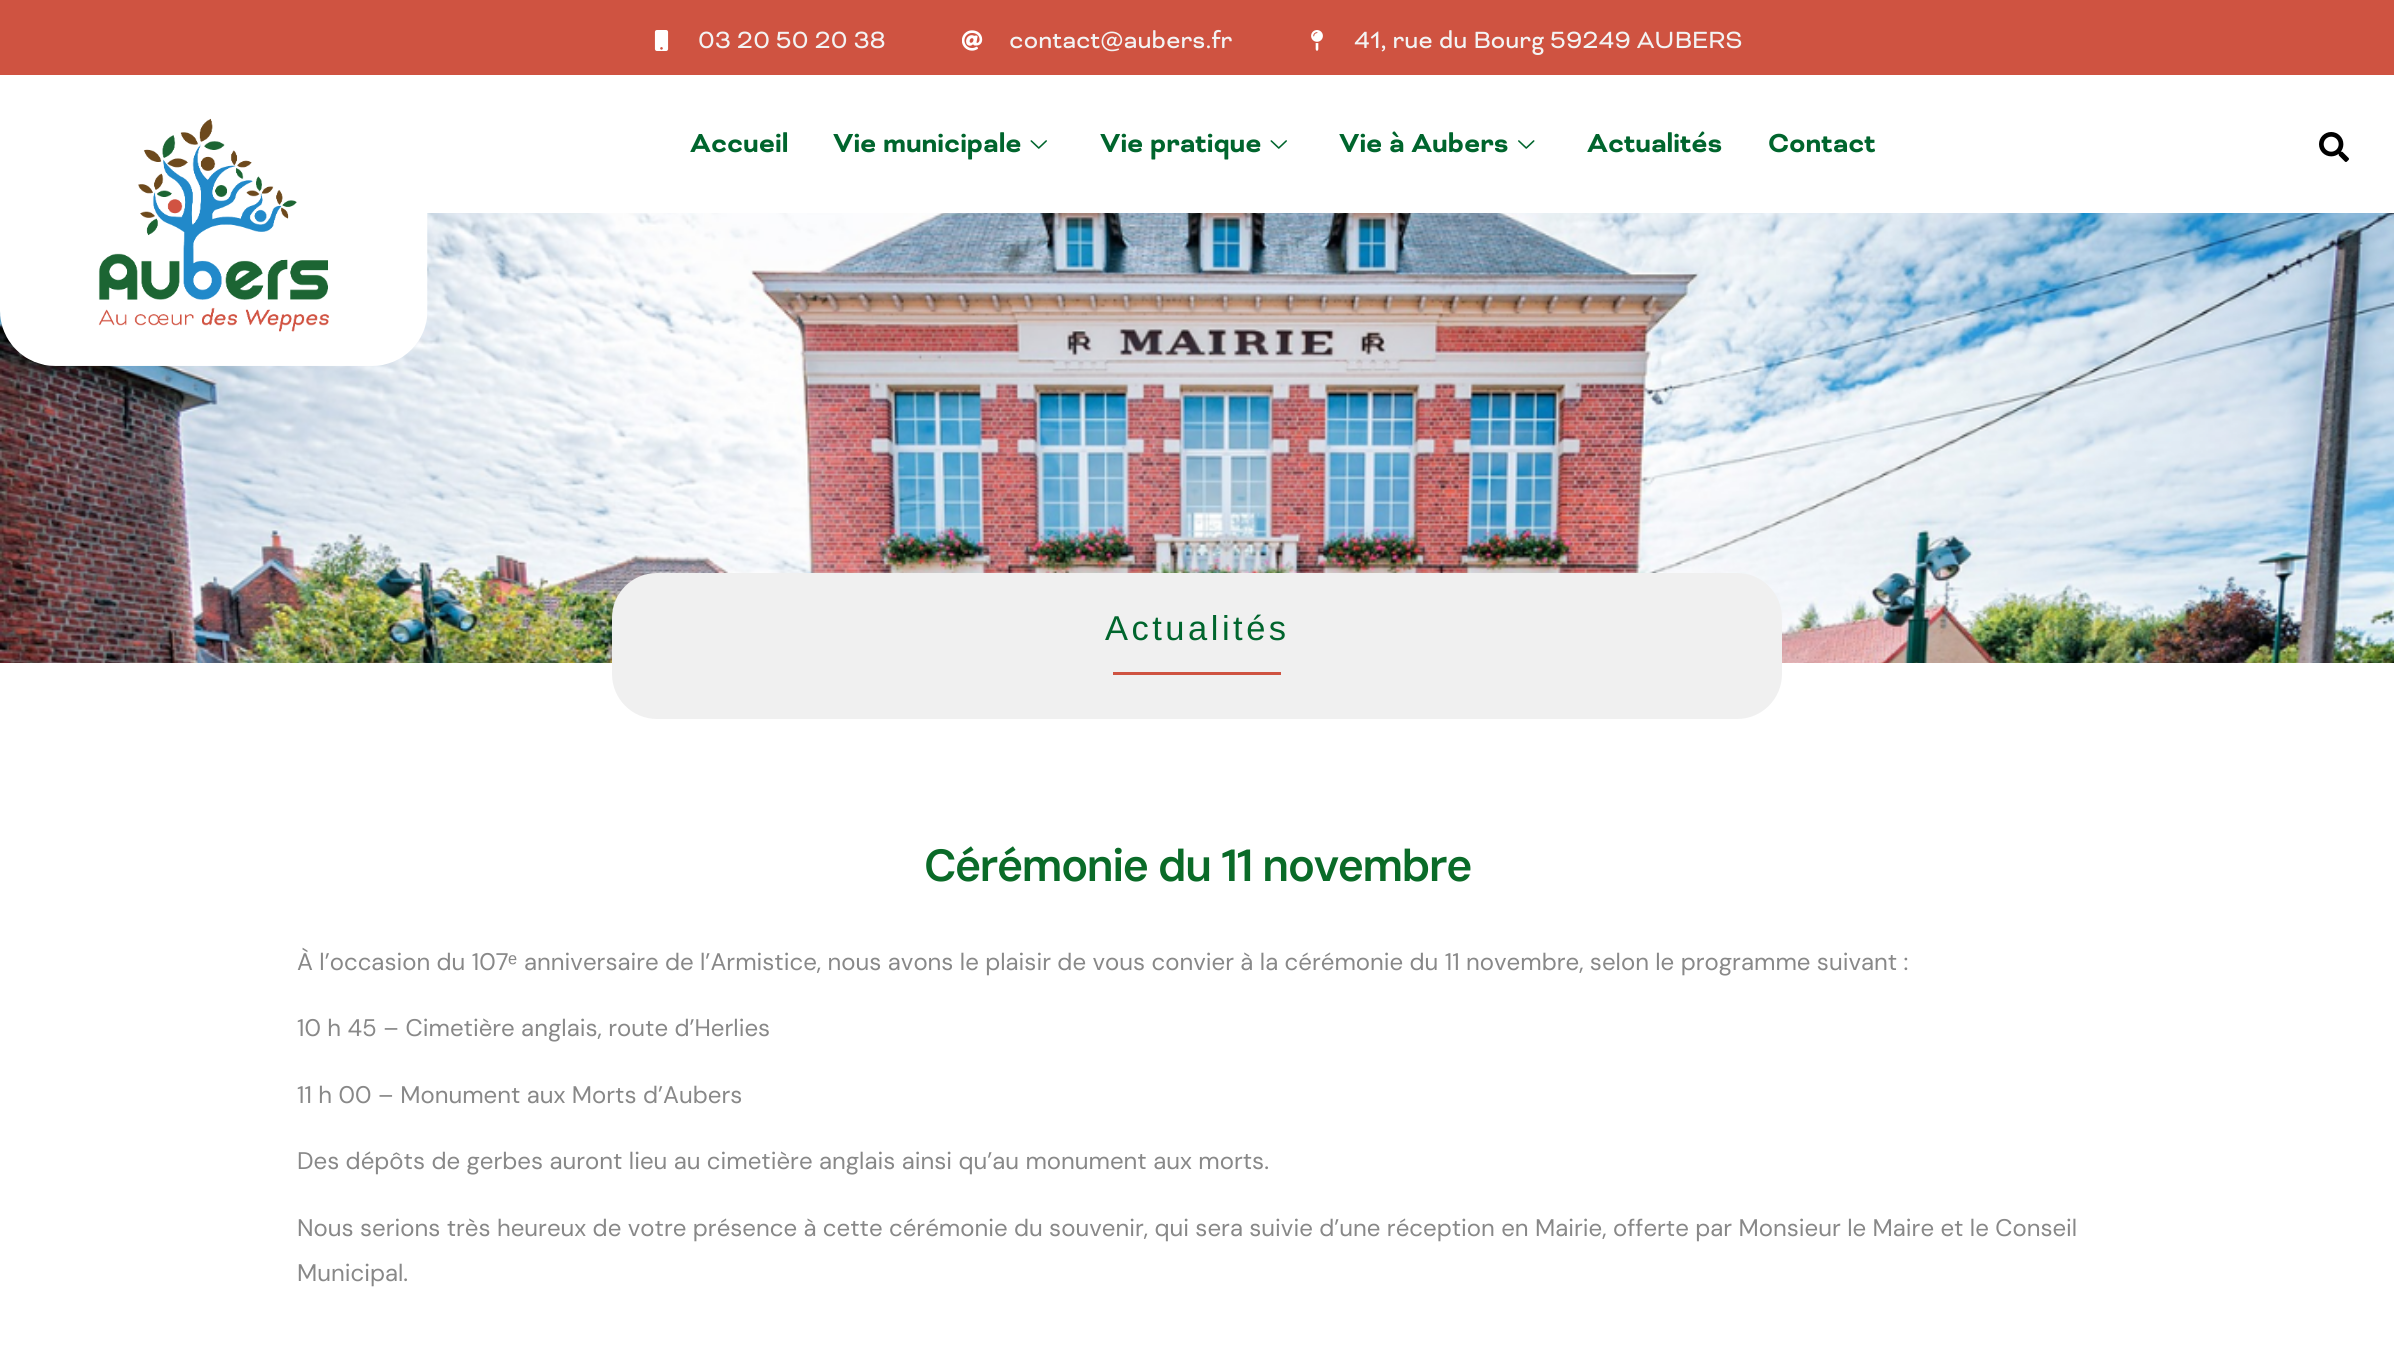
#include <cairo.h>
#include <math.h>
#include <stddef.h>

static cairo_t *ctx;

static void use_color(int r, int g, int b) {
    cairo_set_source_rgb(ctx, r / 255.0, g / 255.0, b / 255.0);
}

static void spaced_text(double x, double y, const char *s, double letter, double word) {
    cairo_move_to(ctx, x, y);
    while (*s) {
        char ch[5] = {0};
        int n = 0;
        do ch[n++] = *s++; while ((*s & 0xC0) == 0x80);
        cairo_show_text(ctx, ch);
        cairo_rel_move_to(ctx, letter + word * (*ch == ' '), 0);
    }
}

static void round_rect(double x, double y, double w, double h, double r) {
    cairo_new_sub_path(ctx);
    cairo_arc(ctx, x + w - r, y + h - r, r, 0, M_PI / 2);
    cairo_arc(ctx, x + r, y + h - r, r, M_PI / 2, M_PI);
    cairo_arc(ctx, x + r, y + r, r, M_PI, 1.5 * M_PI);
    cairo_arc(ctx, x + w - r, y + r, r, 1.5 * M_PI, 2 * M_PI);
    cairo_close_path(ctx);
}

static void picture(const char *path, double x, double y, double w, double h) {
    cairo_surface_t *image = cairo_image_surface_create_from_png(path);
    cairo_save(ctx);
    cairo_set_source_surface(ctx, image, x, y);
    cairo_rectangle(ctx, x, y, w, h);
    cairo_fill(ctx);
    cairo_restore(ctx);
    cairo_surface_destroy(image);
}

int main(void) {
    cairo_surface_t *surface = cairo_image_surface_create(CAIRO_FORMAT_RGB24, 2394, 1350);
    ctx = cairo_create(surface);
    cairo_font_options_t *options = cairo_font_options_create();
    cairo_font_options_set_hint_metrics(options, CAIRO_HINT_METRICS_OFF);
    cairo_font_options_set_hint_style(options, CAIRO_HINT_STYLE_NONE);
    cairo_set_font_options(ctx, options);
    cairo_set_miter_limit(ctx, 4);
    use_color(255, 255, 255);
    cairo_paint(ctx);
    use_color(207, 83, 65);
    cairo_rectangle(ctx, 0, 0, 2394, 75);
    cairo_fill(ctx);
    picture("img1.png", 654, 30, 15, 21);
    cairo_select_font_face(ctx, "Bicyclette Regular", CAIRO_FONT_SLANT_NORMAL, CAIRO_FONT_WEIGHT_NORMAL);
    cairo_set_font_size(ctx, 27);
    use_color(243, 243, 243);
    cairo_move_to(ctx, 698, 48);
    cairo_show_text(ctx, "03 20 50 20 38");
    picture("img2.png", 962, 30, 21, 21);
    cairo_move_to(ctx, 1009, 48);
    cairo_show_text(ctx, "contact@aubers.fr");
    picture("img3.png", 1311, 30, 12, 21);
    cairo_move_to(ctx, 1354, 48);
    cairo_show_text(ctx, "41, rue du Bourg 59249 AUBERS");
    picture("img8.png", 0, 213, 2394, 450);
    picture("img4.png", 0, 118, 428, 248);
    cairo_select_font_face(ctx, "Bicyclette Regular", CAIRO_FONT_SLANT_NORMAL, CAIRO_FONT_WEIGHT_BOLD);
    cairo_set_font_size(ctx, 30);
    use_color(0, 101, 45);
    cairo_move_to(ctx, 690, 152);
    cairo_show_text(ctx, "Accueil");
    cairo_move_to(ctx, 833, 152);
    cairo_show_text(ctx, "Vie municipale");
    picture("img5.png", 1030, 140, 17, 9);
    cairo_move_to(ctx, 1100, 152);
    cairo_show_text(ctx, "Vie pratique");
    picture("img5.png", 1270, 140, 17, 9);
    cairo_move_to(ctx, 1339, 152);
    cairo_show_text(ctx, "Vie à Aubers");
    picture("img6.png", 1518, 140, 17, 9);
    cairo_move_to(ctx, 1587, 152);
    cairo_show_text(ctx, "Actualités");
    cairo_move_to(ctx, 1768, 152);
    cairo_show_text(ctx, "Contact");
    picture("img7.png", 2319, 132, 30, 30);
    use_color(240, 240, 240);
    round_rect(612, 573, 1170, 146, 45);
    cairo_fill(ctx);
    cairo_select_font_face(ctx, "Liberation Sans", CAIRO_FONT_SLANT_NORMAL, CAIRO_FONT_WEIGHT_NORMAL);
    cairo_set_font_size(ctx, 34.5);
    use_color(0, 101, 45);
    spaced_text(1105, 640, "Actualités", 3.5, 0);
    use_color(207, 83, 65);
    cairo_rectangle(ctx, 1113, 672, 168, 3);
    cairo_fill(ctx);
    cairo_select_font_face(ctx, "DM Sans SemiBold", CAIRO_FONT_SLANT_NORMAL, CAIRO_FONT_WEIGHT_NORMAL);
    cairo_set_font_size(ctx, 45);
    use_color(10, 107, 40);
    spaced_text(924, 881, "Cérémonie du 11 novembre", -1.8, 1);
    cairo_select_font_face(ctx, "DM Sans", CAIRO_FONT_SLANT_NORMAL, CAIRO_FONT_WEIGHT_NORMAL);
    cairo_set_font_size(ctx, 24);
    use_color(136, 136, 136);
    cairo_move_to(ctx, 297, 970);
    cairo_show_text(ctx, "À l’occasion du 107");
    cairo_select_font_face(ctx, "Liberation Sans", CAIRO_FONT_SLANT_NORMAL, CAIRO_FONT_WEIGHT_NORMAL);
    cairo_move_to(ctx, 508, 970);
    cairo_show_text(ctx, "ᵉ");
    cairo_select_font_face(ctx, "DM Sans", CAIRO_FONT_SLANT_NORMAL, CAIRO_FONT_WEIGHT_NORMAL);
    cairo_move_to(ctx, 524, 970);
    cairo_show_text(ctx, "anniversaire de");
    cairo_move_to(ctx, 700, 970);
    cairo_show_text(ctx, "l’Armistice, nous avons le plaisir de vous convier à la cérémonie du 11 novembre, selon le programme suivant :");
    cairo_move_to(ctx, 297, 1036);
    cairo_show_text(ctx, "10 h 45 – Cimetière anglais, route d’Herlies");
    cairo_move_to(ctx, 297, 1103);
    cairo_show_text(ctx, "11 h 00 – Monument aux Morts d’Aubers");
    cairo_move_to(ctx, 297, 1169);
    cairo_show_text(ctx, "Des dépôts de gerbes auront lieu au cimetière anglais ainsi qu’au monument aux morts.");
    cairo_move_to(ctx, 297, 1236);
    cairo_show_text(ctx, "Nous serions très heureux de votre présence à cette cérémonie du souvenir, qui sera suivie d’une réception en Mairie, offerte par Monsieur le Maire et le Conseil");
    cairo_move_to(ctx, 297, 1281);
    cairo_show_text(ctx, "Municipal.");
    cairo_surface_write_to_png(surface, "result.png");
    cairo_font_options_destroy(options);
    cairo_destroy(ctx);
    cairo_surface_destroy(surface);
    return 0;
}
